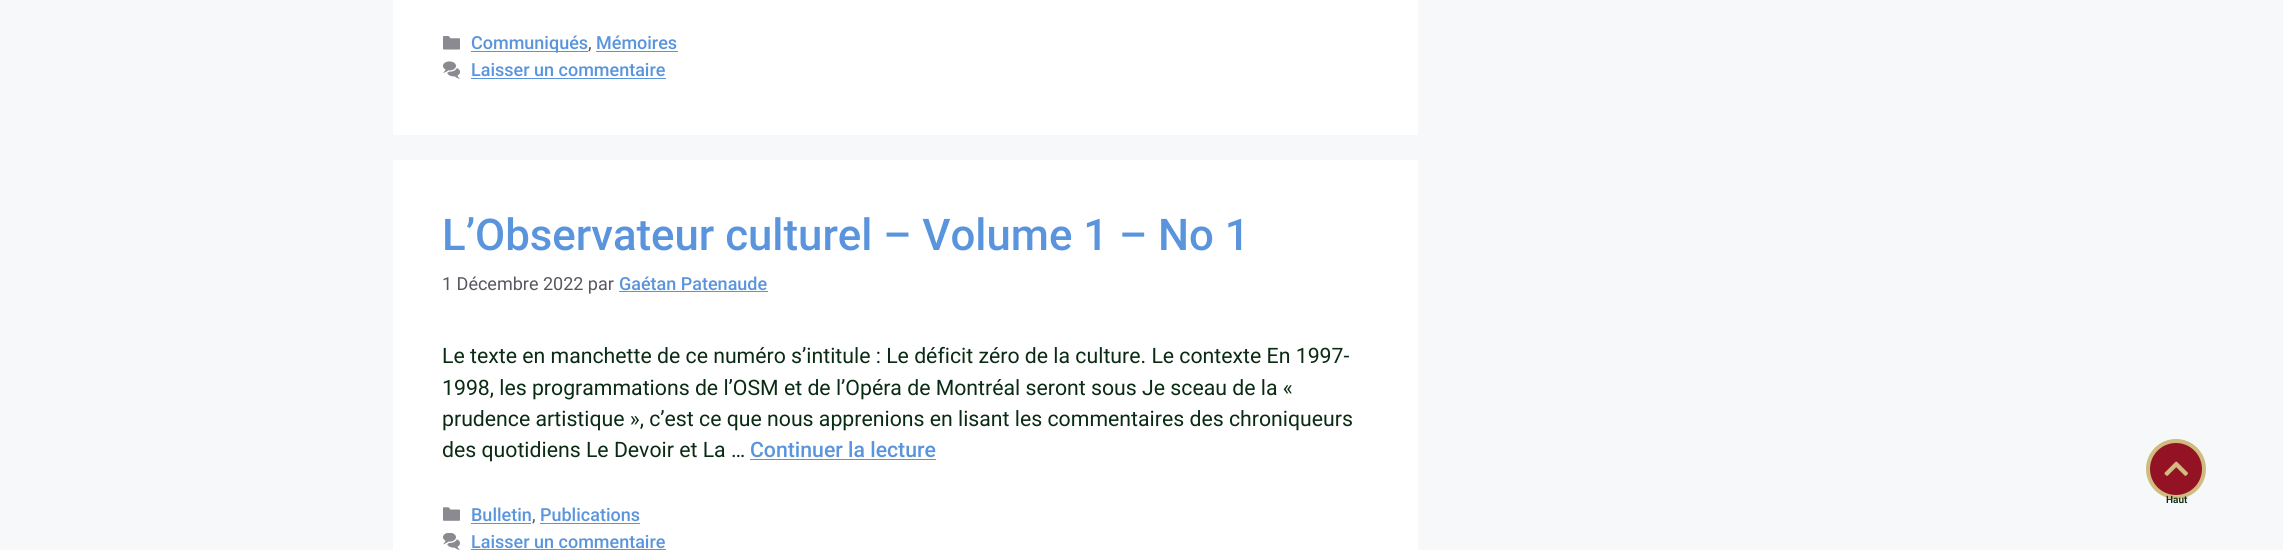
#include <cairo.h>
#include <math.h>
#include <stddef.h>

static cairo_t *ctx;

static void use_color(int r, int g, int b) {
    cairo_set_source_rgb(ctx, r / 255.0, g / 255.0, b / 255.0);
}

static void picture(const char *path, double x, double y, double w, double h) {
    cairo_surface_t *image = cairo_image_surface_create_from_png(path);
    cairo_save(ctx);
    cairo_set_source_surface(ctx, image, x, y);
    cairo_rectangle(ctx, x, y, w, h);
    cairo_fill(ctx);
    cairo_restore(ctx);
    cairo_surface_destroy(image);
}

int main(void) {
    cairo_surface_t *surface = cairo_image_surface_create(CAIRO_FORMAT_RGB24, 2283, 550);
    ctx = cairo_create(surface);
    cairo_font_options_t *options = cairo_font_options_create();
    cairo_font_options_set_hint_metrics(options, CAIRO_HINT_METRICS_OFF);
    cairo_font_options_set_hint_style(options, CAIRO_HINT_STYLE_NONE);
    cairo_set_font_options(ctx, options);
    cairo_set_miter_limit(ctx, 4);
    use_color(247, 248, 249);
    cairo_paint(ctx);
    use_color(255, 255, 255);
    cairo_rectangle(ctx, 393, 0, 1025, 135);
    cairo_fill(ctx);
    picture("img1.png", 443, 36, 17, 14);
    use_color(90, 148, 220);
    cairo_rectangle(ctx, 471, 51, 117, 1);
    cairo_fill(ctx);
    cairo_select_font_face(ctx, "Roboto Medium", CAIRO_FONT_SLANT_NORMAL, CAIRO_FONT_WEIGHT_NORMAL);
    cairo_set_font_size(ctx, 18);
    cairo_move_to(ctx, 471, 49);
    cairo_show_text(ctx, "Communiqués");
    cairo_select_font_face(ctx, "Roboto", CAIRO_FONT_SLANT_NORMAL, CAIRO_FONT_WEIGHT_NORMAL);
    use_color(87, 87, 96);
    cairo_move_to(ctx, 588, 49);
    cairo_show_text(ctx, ",");
    cairo_select_font_face(ctx, "Roboto Medium", CAIRO_FONT_SLANT_NORMAL, CAIRO_FONT_WEIGHT_NORMAL);
    use_color(90, 148, 220);
    cairo_move_to(ctx, 596, 49);
    cairo_show_text(ctx, "Mémoires");
    cairo_rectangle(ctx, 596, 51, 82, 1);
    cairo_fill(ctx);
    picture("img2.png", 443, 61, 17, 18);
    cairo_move_to(ctx, 471, 76);
    cairo_show_text(ctx, "Laisser un commentaire");
    cairo_rectangle(ctx, 471, 78, 195, 1);
    cairo_fill(ctx);
    use_color(255, 255, 255);
    cairo_rectangle(ctx, 393, 160, 1025, 390);
    cairo_fill(ctx);
    cairo_set_font_size(ctx, 43.75);
    use_color(90, 148, 220);
    cairo_move_to(ctx, 442, 250);
    cairo_show_text(ctx, "L’Observateur culturel – Volume 1 – No 1");
    cairo_select_font_face(ctx, "Roboto", CAIRO_FONT_SLANT_NORMAL, CAIRO_FONT_WEIGHT_NORMAL);
    cairo_set_font_size(ctx, 18);
    use_color(87, 87, 96);
    cairo_move_to(ctx, 442, 290);
    cairo_show_text(ctx, "1 Décembre 2022 par");
    cairo_select_font_face(ctx, "Roboto Medium", CAIRO_FONT_SLANT_NORMAL, CAIRO_FONT_WEIGHT_NORMAL);
    use_color(90, 148, 220);
    cairo_move_to(ctx, 619, 290);
    cairo_show_text(ctx, "Gaétan Patenaude");
    cairo_rectangle(ctx, 619, 291, 149, 1);
    cairo_fill(ctx);
    cairo_select_font_face(ctx, "Roboto", CAIRO_FONT_SLANT_NORMAL, CAIRO_FONT_WEIGHT_NORMAL);
    cairo_set_font_size(ctx, 21.25);
    use_color(10, 43, 19);
    cairo_move_to(ctx, 442, 363);
    cairo_show_text(ctx, "Le texte en manchette de ce numéro s’intitule : Le déficit zéro de la culture. Le contexte En 1997-");
    cairo_move_to(ctx, 442, 395);
    cairo_show_text(ctx, "1998, les programmations de l’OSM et de l’Opéra de Montréal seront sous Je sceau de la «");
    cairo_move_to(ctx, 442, 426);
    cairo_show_text(ctx, "prudence artistique », c’est ce que nous apprenions en lisant les commentaires des chroniqueurs");
    cairo_move_to(ctx, 442, 457);
    cairo_show_text(ctx, "des quotidiens Le Devoir et La …");
    cairo_select_font_face(ctx, "Roboto Medium", CAIRO_FONT_SLANT_NORMAL, CAIRO_FONT_WEIGHT_NORMAL);
    use_color(90, 148, 220);
    cairo_move_to(ctx, 750, 457);
    cairo_show_text(ctx, "Continuer la lecture");
    cairo_rectangle(ctx, 750, 459, 186, 1);
    cairo_fill(ctx);
    picture("img3.png", 443, 507, 17, 14);
    cairo_set_font_size(ctx, 18);
    cairo_move_to(ctx, 471, 521);
    cairo_show_text(ctx, "Bulletin");
    cairo_rectangle(ctx, 471, 523, 60, 1);
    cairo_fill(ctx);
    cairo_select_font_face(ctx, "Roboto", CAIRO_FONT_SLANT_NORMAL, CAIRO_FONT_WEIGHT_NORMAL);
    use_color(87, 87, 96);
    cairo_move_to(ctx, 532, 521);
    cairo_show_text(ctx, ",");
    cairo_select_font_face(ctx, "Roboto Medium", CAIRO_FONT_SLANT_NORMAL, CAIRO_FONT_WEIGHT_NORMAL);
    use_color(90, 148, 220);
    cairo_move_to(ctx, 540, 521);
    cairo_show_text(ctx, "Publications");
    cairo_rectangle(ctx, 540, 523, 100, 1);
    cairo_fill(ctx);
    picture("img4.png", 443, 533, 17, 17);
    cairo_move_to(ctx, 471, 548);
    cairo_show_text(ctx, "Laisser un commentaire");
    cairo_rectangle(ctx, 471, 549, 195, 1);
    cairo_fill(ctx);
    use_color(147, 19, 37);
    cairo_arc(ctx, 2176, 469, 28, 0, 2 * M_PI);
    cairo_fill_preserve(ctx);
    use_color(207, 188, 126);
    cairo_set_line_width(ctx, 4);
    cairo_stroke(ctx);
    picture("img5.png", 2164, 461, 24, 15);
    cairo_select_font_face(ctx, "Roboto SemiBold", CAIRO_FONT_SLANT_NORMAL, CAIRO_FONT_WEIGHT_NORMAL);
    cairo_set_font_size(ctx, 10);
    use_color(10, 43, 19);
    cairo_move_to(ctx, 2166, 503);
    cairo_show_text(ctx, "Haut");
    cairo_surface_write_to_png(surface, "result.png");
    cairo_font_options_destroy(options);
    cairo_destroy(ctx);
    cairo_surface_destroy(surface);
    return 0;
}
